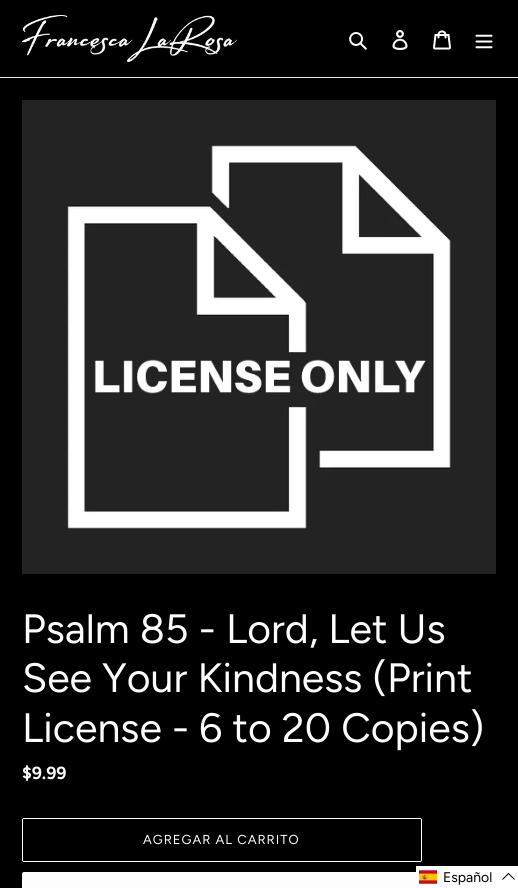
#include <cairo.h>
#include <math.h>
#include <stddef.h>

static cairo_t *ctx;

static void use_color(int r, int g, int b) {
    cairo_set_source_rgb(ctx, r / 255.0, g / 255.0, b / 255.0);
}

static void spaced_text(double x, double y, const char *s, double letter, double word) {
    cairo_move_to(ctx, x, y);
    while (*s) {
        char ch[5] = {0};
        int n = 0;
        do ch[n++] = *s++; while ((*s & 0xC0) == 0x80);
        cairo_show_text(ctx, ch);
        cairo_rel_move_to(ctx, letter + word * (*ch == ' '), 0);
    }
}

static void round_rect(double x, double y, double w, double h, double r) {
    cairo_new_sub_path(ctx);
    cairo_arc(ctx, x + w - r, y + h - r, r, 0, M_PI / 2);
    cairo_arc(ctx, x + r, y + h - r, r, M_PI / 2, M_PI);
    cairo_arc(ctx, x + r, y + r, r, M_PI, 1.5 * M_PI);
    cairo_arc(ctx, x + w - r, y + r, r, 1.5 * M_PI, 2 * M_PI);
    cairo_close_path(ctx);
}

static void picture(const char *path, double x, double y, double w, double h) {
    cairo_surface_t *image = cairo_image_surface_create_from_png(path);
    cairo_save(ctx);
    cairo_set_source_surface(ctx, image, x, y);
    cairo_rectangle(ctx, x, y, w, h);
    cairo_fill(ctx);
    cairo_restore(ctx);
    cairo_surface_destroy(image);
}

int main(void) {
    cairo_surface_t *surface = cairo_image_surface_create(CAIRO_FORMAT_RGB24, 518, 888);
    ctx = cairo_create(surface);
    cairo_font_options_t *options = cairo_font_options_create();
    cairo_font_options_set_hint_metrics(options, CAIRO_HINT_METRICS_OFF);
    cairo_font_options_set_hint_style(options, CAIRO_HINT_STYLE_NONE);
    cairo_set_font_options(ctx, options);
    cairo_set_miter_limit(ctx, 4);
    use_color(0, 0, 0);
    cairo_paint(ctx);
    use_color(235, 235, 235);
    cairo_rectangle(ctx, 0, 77, 518, 1);
    cairo_fill(ctx);
    picture("img1.png", 22, 15, 215, 47);
    picture("img2.png", 349, 32, 18, 18);
    picture("img3.png", 392, 30, 16, 20);
    picture("img4.png", 433, 30, 18, 20);
    picture("img5.png", 475, 34, 18, 15);
    picture("img6.png", 22, 100, 474, 474);
    cairo_select_font_face(ctx, "Figtree", CAIRO_FONT_SLANT_NORMAL, CAIRO_FONT_WEIGHT_NORMAL);
    cairo_set_font_size(ctx, 41);
    use_color(253, 253, 253);
    cairo_move_to(ctx, 22, 643);
    cairo_show_text(ctx, "Psalm 85 - Lord, Let Us");
    cairo_move_to(ctx, 22, 692);
    cairo_show_text(ctx, "See Your Kindness (Print");
    cairo_move_to(ctx, 22, 742);
    cairo_show_text(ctx, "License - 6 to 20 Copies)");
    cairo_select_font_face(ctx, "Figtree", CAIRO_FONT_SLANT_NORMAL, CAIRO_FONT_WEIGHT_BOLD);
    cairo_set_font_size(ctx, 17.5);
    cairo_move_to(ctx, 22, 779);
    cairo_show_text(ctx, "$9.99");
    round_rect(22.5, 818.5, 399, 43, 1.5);
    cairo_set_line_width(ctx, 1);
    cairo_stroke(ctx);
    cairo_select_font_face(ctx, "Figtree", CAIRO_FONT_SLANT_NORMAL, CAIRO_FONT_WEIGHT_NORMAL);
    cairo_set_font_size(ctx, 13);
    spaced_text(143, 844, "AGREGAR AL CARRITO", 1, 0);
    round_rect(22, 872, 400, 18, 2);
    cairo_fill(ctx);
    use_color(255, 255, 255);
    cairo_rectangle(ctx, 416, 866, 102, 22);
    cairo_fill(ctx);
    picture("img7.png", 419, 870, 18, 14);
    cairo_set_font_size(ctx, 14);
    use_color(0, 0, 0);
    cairo_move_to(ctx, 443, 882);
    cairo_show_text(ctx, "Español");
    cairo_new_path(ctx);
    cairo_move_to(ctx, 514.5, 879.5);
    cairo_line_to(ctx, 508.5, 873.5);
    cairo_line_to(ctx, 502.5, 879.5);
    cairo_stroke(ctx);
    cairo_surface_write_to_png(surface, "result.png");
    cairo_font_options_destroy(options);
    cairo_destroy(ctx);
    cairo_surface_destroy(surface);
    return 0;
}
